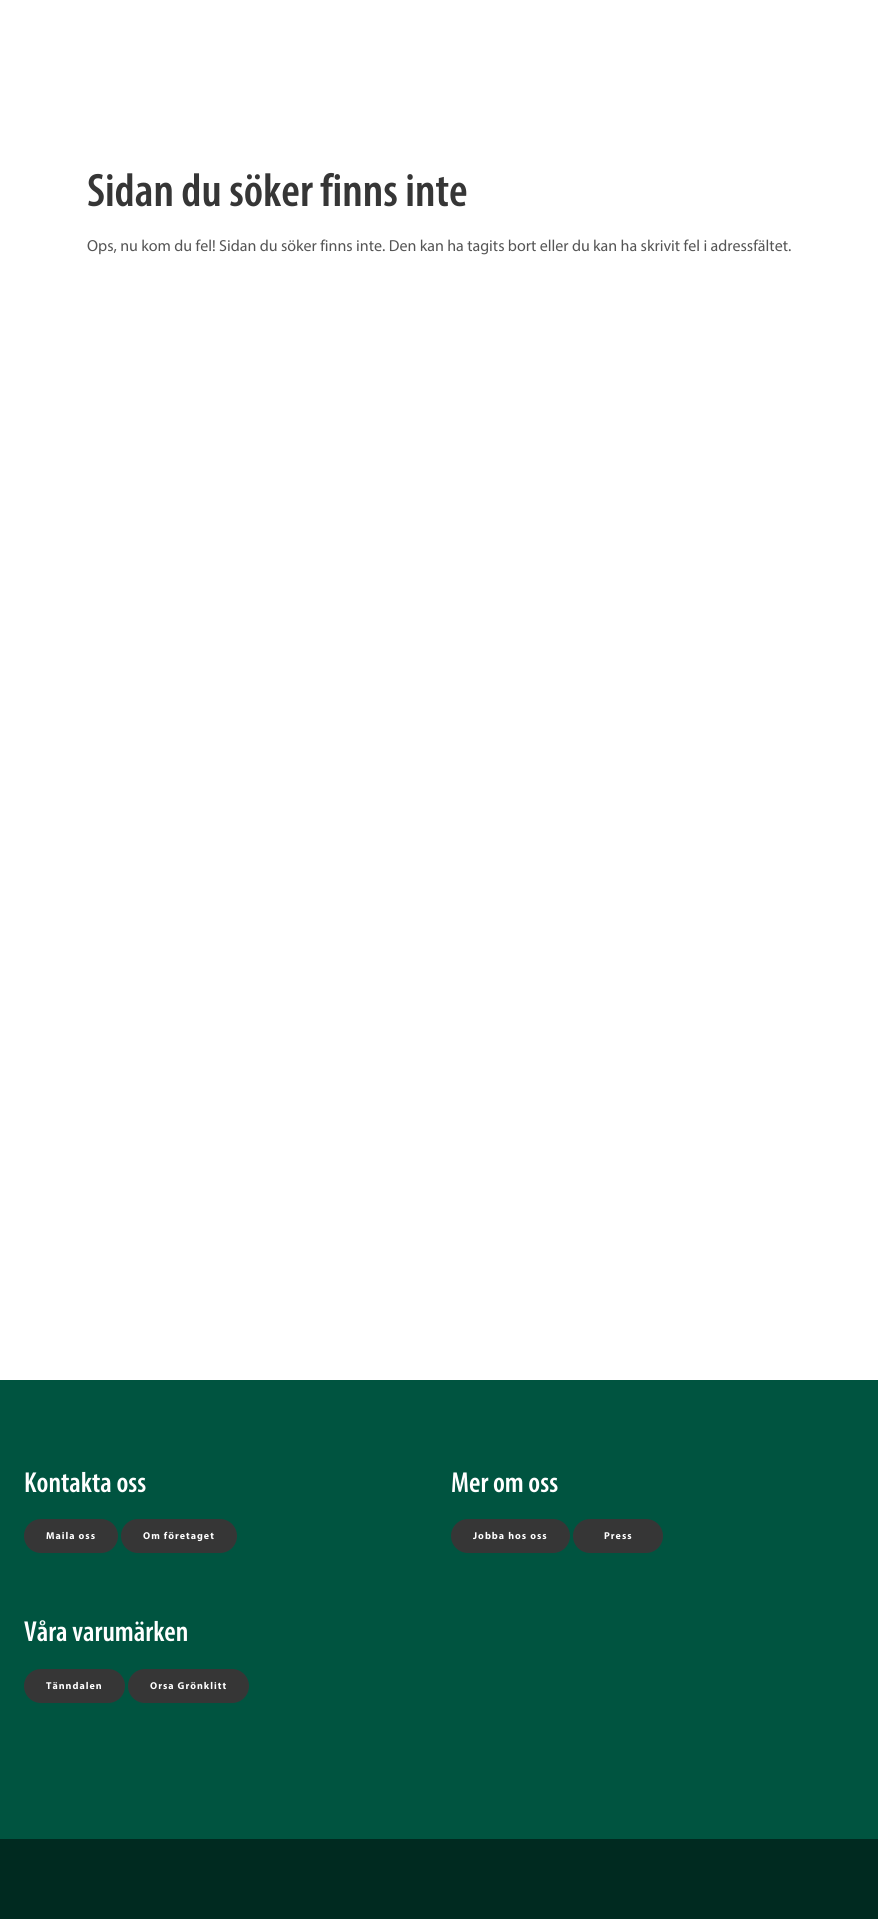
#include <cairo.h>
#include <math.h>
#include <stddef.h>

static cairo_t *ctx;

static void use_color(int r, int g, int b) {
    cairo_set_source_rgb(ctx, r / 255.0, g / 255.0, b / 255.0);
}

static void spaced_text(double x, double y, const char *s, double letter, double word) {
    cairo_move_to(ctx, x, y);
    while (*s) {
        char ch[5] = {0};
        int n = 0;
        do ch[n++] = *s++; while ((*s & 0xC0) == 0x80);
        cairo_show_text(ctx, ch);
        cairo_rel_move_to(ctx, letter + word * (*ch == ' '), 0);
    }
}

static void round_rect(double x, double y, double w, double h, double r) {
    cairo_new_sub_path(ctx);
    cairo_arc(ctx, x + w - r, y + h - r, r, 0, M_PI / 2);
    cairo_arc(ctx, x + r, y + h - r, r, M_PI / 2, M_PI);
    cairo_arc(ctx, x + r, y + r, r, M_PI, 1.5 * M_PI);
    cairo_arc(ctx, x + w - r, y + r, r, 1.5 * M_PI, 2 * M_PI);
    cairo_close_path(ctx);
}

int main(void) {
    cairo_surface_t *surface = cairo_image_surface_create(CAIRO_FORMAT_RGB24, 878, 1919);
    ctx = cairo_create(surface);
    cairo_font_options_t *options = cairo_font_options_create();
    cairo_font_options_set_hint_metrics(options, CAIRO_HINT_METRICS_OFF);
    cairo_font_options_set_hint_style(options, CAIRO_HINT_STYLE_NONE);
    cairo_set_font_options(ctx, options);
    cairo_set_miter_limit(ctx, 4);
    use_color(255, 255, 255);
    cairo_paint(ctx);
    cairo_select_font_face(ctx, "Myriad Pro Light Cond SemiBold", CAIRO_FONT_SLANT_NORMAL, CAIRO_FONT_WEIGHT_NORMAL);
    cairo_set_font_size(ctx, 47.25);
    use_color(54, 54, 54);
    cairo_move_to(ctx, 87, 206);
    cairo_show_text(ctx, "Sidan du söker finns inte");
    cairo_select_font_face(ctx, "Myriad", CAIRO_FONT_SLANT_NORMAL, CAIRO_FONT_WEIGHT_NORMAL);
    cairo_set_font_size(ctx, 16);
    use_color(85, 85, 85);
    cairo_move_to(ctx, 87, 251);
    cairo_show_text(ctx, "Ops, nu kom du fel! Sidan du söker finns inte. Den kan ha tagits bort eller du kan ha skrivit fel i adressfältet.");
    use_color(0, 84, 64);
    cairo_rectangle(ctx, 0, 1380, 878, 459);
    cairo_fill(ctx);
    use_color(0, 42, 32);
    cairo_rectangle(ctx, 0, 1839, 878, 80);
    cairo_fill(ctx);
    cairo_select_font_face(ctx, "Myriad Pro Light Cond SemiBold", CAIRO_FONT_SLANT_NORMAL, CAIRO_FONT_WEIGHT_NORMAL);
    cairo_set_font_size(ctx, 29);
    use_color(255, 255, 255);
    cairo_move_to(ctx, 24, 1492);
    cairo_show_text(ctx, "Kontakta oss");
    use_color(54, 54, 54);
    round_rect(24, 1519, 94, 34, 17);
    cairo_fill(ctx);
    cairo_select_font_face(ctx, "Myriad", CAIRO_FONT_SLANT_NORMAL, CAIRO_FONT_WEIGHT_BOLD);
    cairo_set_font_size(ctx, 10);
    use_color(255, 255, 255);
    spaced_text(46, 1539, "Maila oss", 1, 0);
    use_color(54, 54, 54);
    round_rect(121, 1519, 116, 34, 17);
    cairo_fill(ctx);
    use_color(255, 255, 255);
    spaced_text(143, 1539, "Om företaget", 1, 0);
    cairo_select_font_face(ctx, "Myriad Pro Light Cond SemiBold", CAIRO_FONT_SLANT_NORMAL, CAIRO_FONT_WEIGHT_NORMAL);
    cairo_set_font_size(ctx, 29);
    cairo_move_to(ctx, 451, 1492);
    cairo_show_text(ctx, "Mer om oss");
    use_color(54, 54, 54);
    round_rect(451, 1519, 119, 34, 17);
    cairo_fill(ctx);
    cairo_select_font_face(ctx, "Myriad", CAIRO_FONT_SLANT_NORMAL, CAIRO_FONT_WEIGHT_BOLD);
    cairo_set_font_size(ctx, 10);
    use_color(255, 255, 255);
    spaced_text(473, 1539, "Jobba hos oss", 1, 0);
    use_color(54, 54, 54);
    round_rect(573, 1519, 90, 34, 17);
    cairo_fill(ctx);
    use_color(255, 255, 255);
    spaced_text(604, 1539, "Press", 1, 0);
    cairo_select_font_face(ctx, "Myriad Pro Light Cond SemiBold", CAIRO_FONT_SLANT_NORMAL, CAIRO_FONT_WEIGHT_NORMAL);
    cairo_set_font_size(ctx, 29);
    cairo_move_to(ctx, 24, 1641);
    cairo_show_text(ctx, "Våra varumärken");
    use_color(54, 54, 54);
    round_rect(24, 1669, 101, 34, 17);
    cairo_fill(ctx);
    cairo_select_font_face(ctx, "Myriad", CAIRO_FONT_SLANT_NORMAL, CAIRO_FONT_WEIGHT_BOLD);
    cairo_set_font_size(ctx, 10);
    use_color(255, 255, 255);
    spaced_text(46, 1689, "Tänndalen", 1, 0);
    use_color(54, 54, 54);
    round_rect(128, 1669, 121, 34, 17);
    cairo_fill(ctx);
    use_color(255, 255, 255);
    spaced_text(150, 1689, "Orsa Grönklitt", 1, 0);
    cairo_surface_write_to_png(surface, "result.png");
    cairo_font_options_destroy(options);
    cairo_destroy(ctx);
    cairo_surface_destroy(surface);
    return 0;
}
